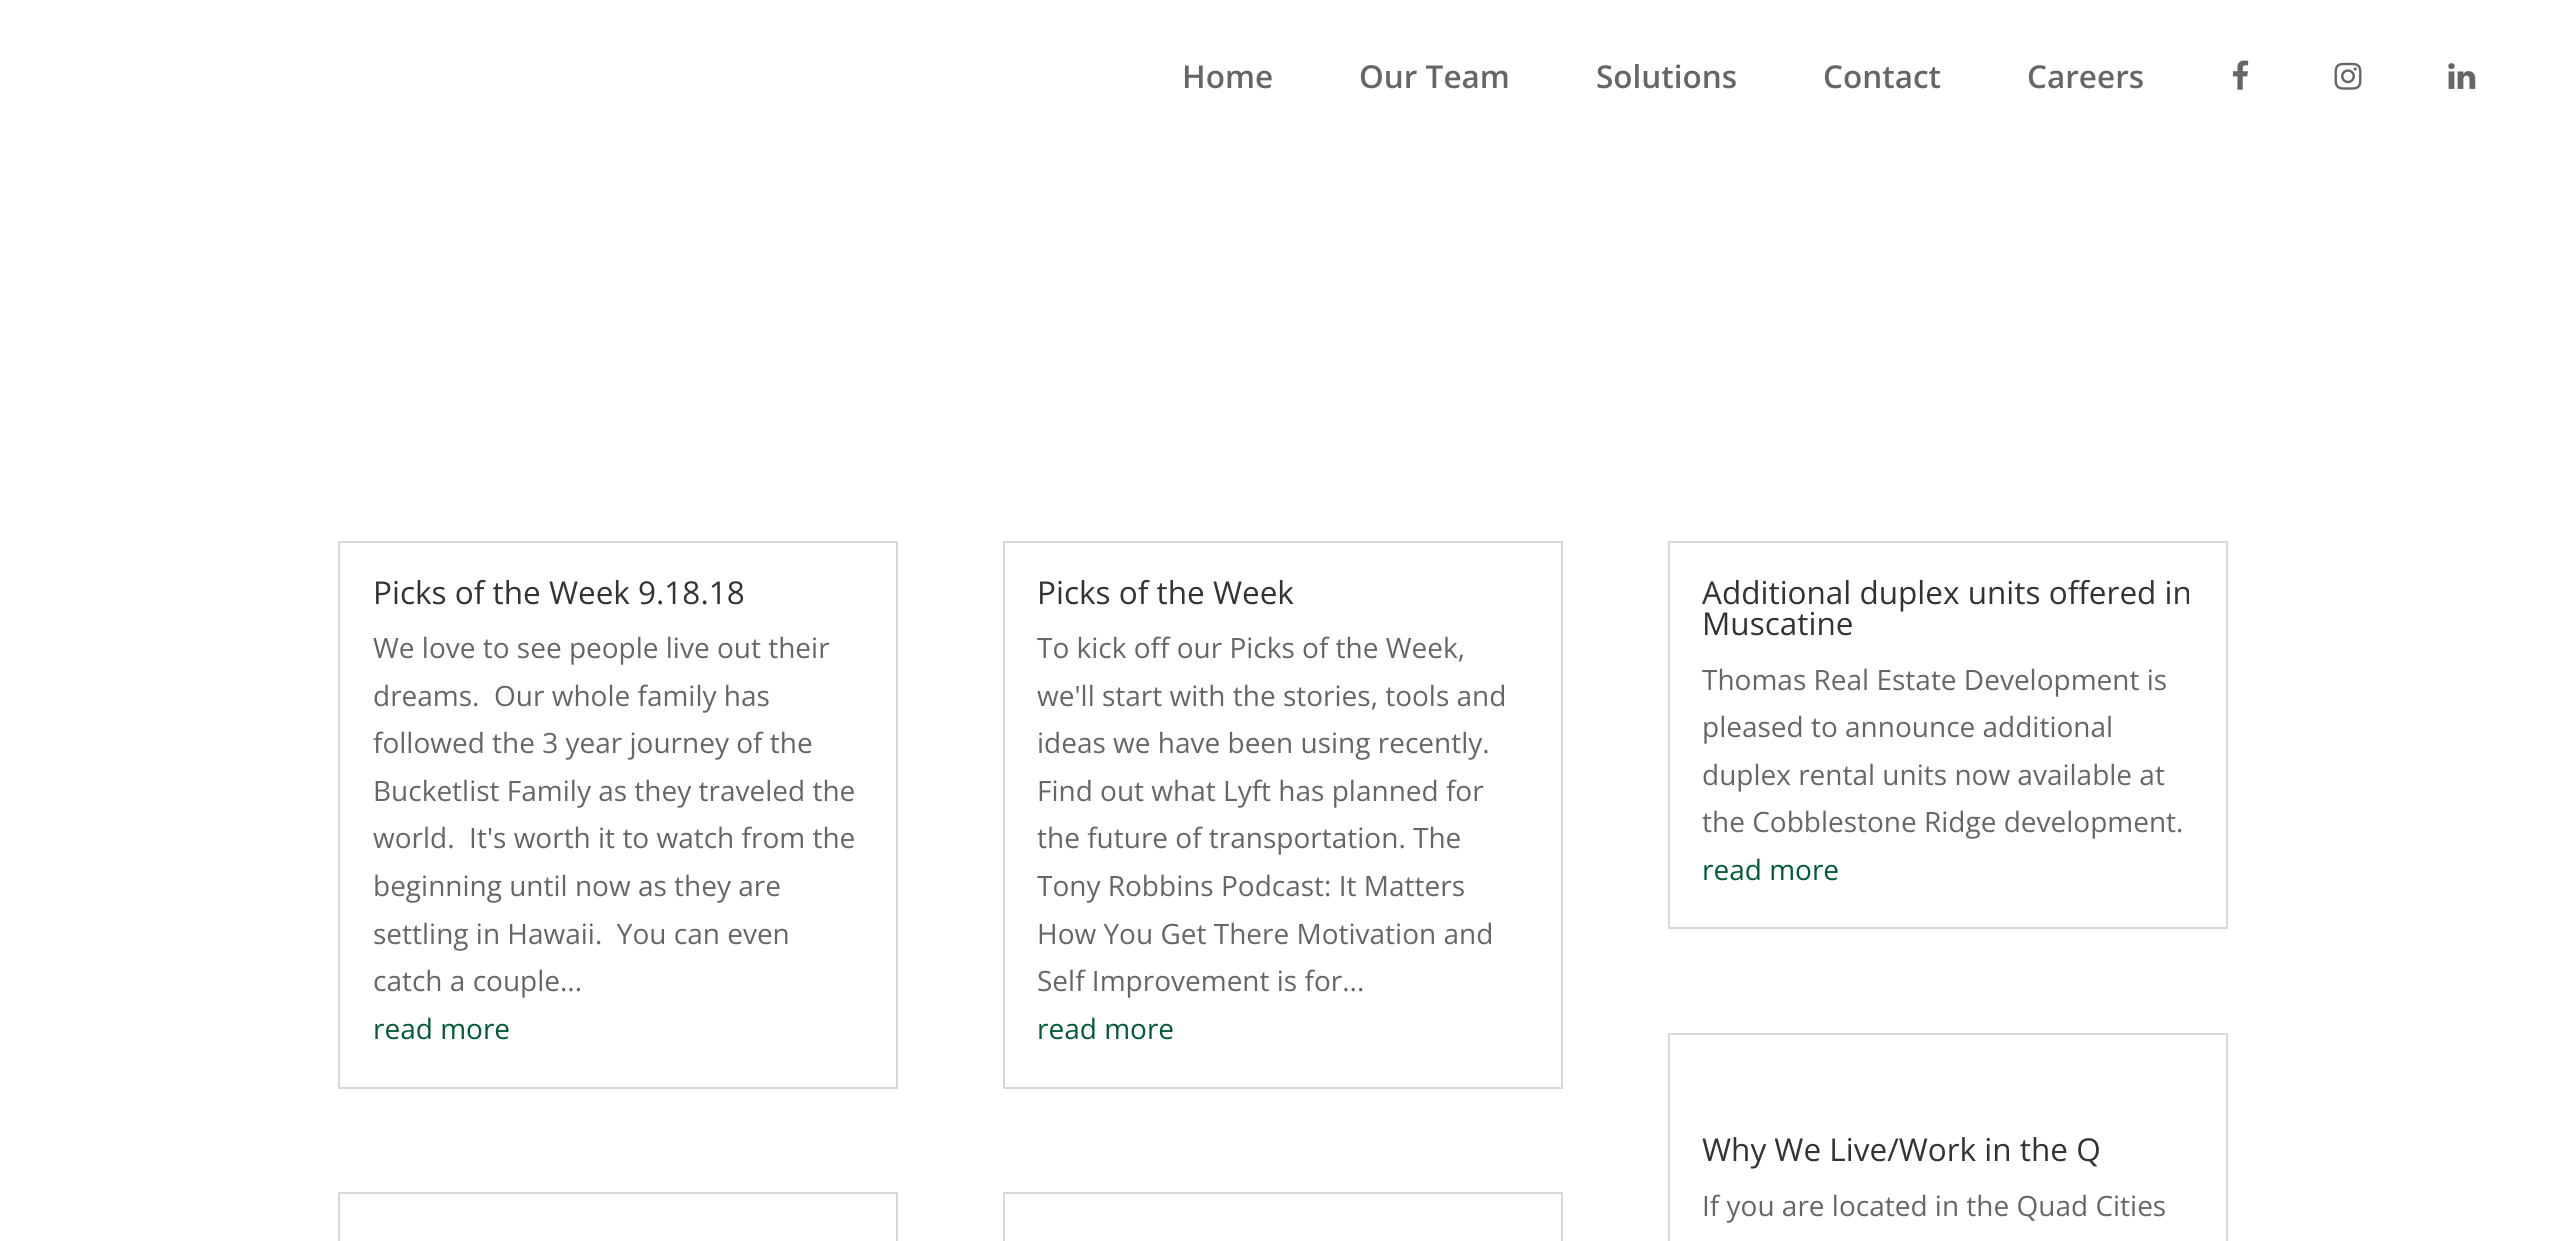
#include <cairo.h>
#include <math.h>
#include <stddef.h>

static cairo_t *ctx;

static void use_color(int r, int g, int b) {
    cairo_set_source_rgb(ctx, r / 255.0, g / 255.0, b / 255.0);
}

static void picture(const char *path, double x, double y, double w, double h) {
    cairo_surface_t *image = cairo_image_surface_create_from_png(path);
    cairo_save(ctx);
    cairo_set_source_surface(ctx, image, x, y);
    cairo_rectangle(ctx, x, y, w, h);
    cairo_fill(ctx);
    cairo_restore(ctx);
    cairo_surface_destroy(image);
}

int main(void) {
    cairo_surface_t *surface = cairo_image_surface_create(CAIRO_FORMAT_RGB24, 2565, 1241);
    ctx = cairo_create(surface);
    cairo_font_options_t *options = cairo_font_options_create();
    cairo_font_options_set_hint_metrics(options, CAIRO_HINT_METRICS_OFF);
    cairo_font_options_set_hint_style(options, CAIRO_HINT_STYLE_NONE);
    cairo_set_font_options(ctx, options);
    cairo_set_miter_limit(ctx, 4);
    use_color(255, 255, 255);
    cairo_paint(ctx);
    cairo_select_font_face(ctx, "Open Sans SemiBold", CAIRO_FONT_SLANT_NORMAL, CAIRO_FONT_WEIGHT_NORMAL);
    cairo_set_font_size(ctx, 31.5);
    use_color(102, 102, 102);
    cairo_move_to(ctx, 1182, 88);
    cairo_show_text(ctx, "Home");
    cairo_move_to(ctx, 1359, 88);
    cairo_show_text(ctx, "Our Team");
    cairo_move_to(ctx, 1596, 88);
    cairo_show_text(ctx, "Solutions");
    cairo_move_to(ctx, 1823, 88);
    cairo_show_text(ctx, "Contact");
    cairo_move_to(ctx, 2027, 88);
    cairo_show_text(ctx, "Careers");
    picture("img1.png", 2232, 60, 17, 30);
    picture("img2.png", 2334, 62, 28, 28);
    picture("img3.png", 2448, 63, 28, 26);
    cairo_rectangle(ctx, 339, 542, 558, 546);
    use_color(216, 216, 216);
    cairo_stroke(ctx);
    cairo_select_font_face(ctx, "Open Sans", CAIRO_FONT_SLANT_NORMAL, CAIRO_FONT_WEIGHT_NORMAL);
    use_color(51, 51, 51);
    cairo_move_to(ctx, 373, 604);
    cairo_show_text(ctx, "Picks of the Week 9.18.18");
    cairo_set_font_size(ctx, 28);
    use_color(102, 102, 102);
    cairo_move_to(ctx, 373, 658);
    cairo_show_text(ctx, "We love to see people live out their");
    cairo_move_to(ctx, 373, 706);
    cairo_show_text(ctx, "dreams.  Our whole family has");
    cairo_move_to(ctx, 373, 753);
    cairo_show_text(ctx, "followed the 3 year journey of the");
    cairo_move_to(ctx, 373, 801);
    cairo_show_text(ctx, "Bucketlist Family as they traveled the");
    cairo_move_to(ctx, 373, 848);
    cairo_show_text(ctx, "world.  It's worth it to watch from the");
    cairo_move_to(ctx, 373, 896);
    cairo_show_text(ctx, "beginning until now as they are");
    cairo_move_to(ctx, 373, 944);
    cairo_show_text(ctx, "settling in Hawaii.  You can even");
    cairo_move_to(ctx, 373, 991);
    cairo_show_text(ctx, "catch a couple...");
    use_color(0, 90, 52);
    cairo_move_to(ctx, 373, 1039);
    cairo_show_text(ctx, "read more");
    cairo_rectangle(ctx, 339, 1193, 558, 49);
    use_color(216, 216, 216);
    cairo_stroke(ctx);
    cairo_rectangle(ctx, 1004, 542, 558, 546);
    cairo_stroke(ctx);
    cairo_set_font_size(ctx, 31.5);
    use_color(51, 51, 51);
    cairo_move_to(ctx, 1037, 604);
    cairo_show_text(ctx, "Picks of the Week");
    cairo_set_font_size(ctx, 28);
    use_color(102, 102, 102);
    cairo_move_to(ctx, 1037, 658);
    cairo_show_text(ctx, "To kick off our Picks of the Week,");
    cairo_move_to(ctx, 1037, 706);
    cairo_show_text(ctx, "we'll start with the stories, tools and");
    cairo_move_to(ctx, 1037, 753);
    cairo_show_text(ctx, "ideas we have been using recently.");
    cairo_move_to(ctx, 1037, 801);
    cairo_show_text(ctx, "Find out what Lyft has planned for");
    cairo_move_to(ctx, 1037, 848);
    cairo_show_text(ctx, "the future of transportation. The");
    cairo_move_to(ctx, 1037, 896);
    cairo_show_text(ctx, "Tony Robbins Podcast: It Matters");
    cairo_move_to(ctx, 1037, 944);
    cairo_show_text(ctx, "How You Get There Motivation and");
    cairo_move_to(ctx, 1037, 991);
    cairo_show_text(ctx, "Self Improvement is for...");
    use_color(0, 90, 52);
    cairo_move_to(ctx, 1037, 1039);
    cairo_show_text(ctx, "read more");
    cairo_rectangle(ctx, 1004, 1193, 558, 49);
    use_color(216, 216, 216);
    cairo_stroke(ctx);
    cairo_rectangle(ctx, 1669, 542, 558, 386);
    cairo_stroke(ctx);
    cairo_set_font_size(ctx, 31.5);
    use_color(51, 51, 51);
    cairo_move_to(ctx, 1702, 604);
    cairo_show_text(ctx, "Additional duplex units offered in");
    cairo_move_to(ctx, 1702, 635);
    cairo_show_text(ctx, "Muscatine");
    cairo_set_font_size(ctx, 28);
    use_color(102, 102, 102);
    cairo_move_to(ctx, 1702, 690);
    cairo_show_text(ctx, "Thomas Real Estate Development is");
    cairo_move_to(ctx, 1702, 737);
    cairo_show_text(ctx, "pleased to announce additional");
    cairo_move_to(ctx, 1702, 785);
    cairo_show_text(ctx, "duplex rental units now available at");
    cairo_move_to(ctx, 1702, 832);
    cairo_show_text(ctx, "the Cobblestone Ridge development.");
    use_color(0, 90, 52);
    cairo_move_to(ctx, 1702, 880);
    cairo_show_text(ctx, "read more");
    cairo_rectangle(ctx, 1669, 1034, 558, 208);
    use_color(216, 216, 216);
    cairo_stroke(ctx);
    cairo_set_font_size(ctx, 31.5);
    use_color(51, 51, 51);
    cairo_move_to(ctx, 1702, 1161);
    cairo_show_text(ctx, "Why We Live/Work in the Q");
    cairo_set_font_size(ctx, 28);
    use_color(102, 102, 102);
    cairo_move_to(ctx, 1702, 1216);
    cairo_show_text(ctx, "If you are located in the Quad Cities");
    cairo_surface_write_to_png(surface, "result.png");
    cairo_font_options_destroy(options);
    cairo_destroy(ctx);
    cairo_surface_destroy(surface);
    return 0;
}
